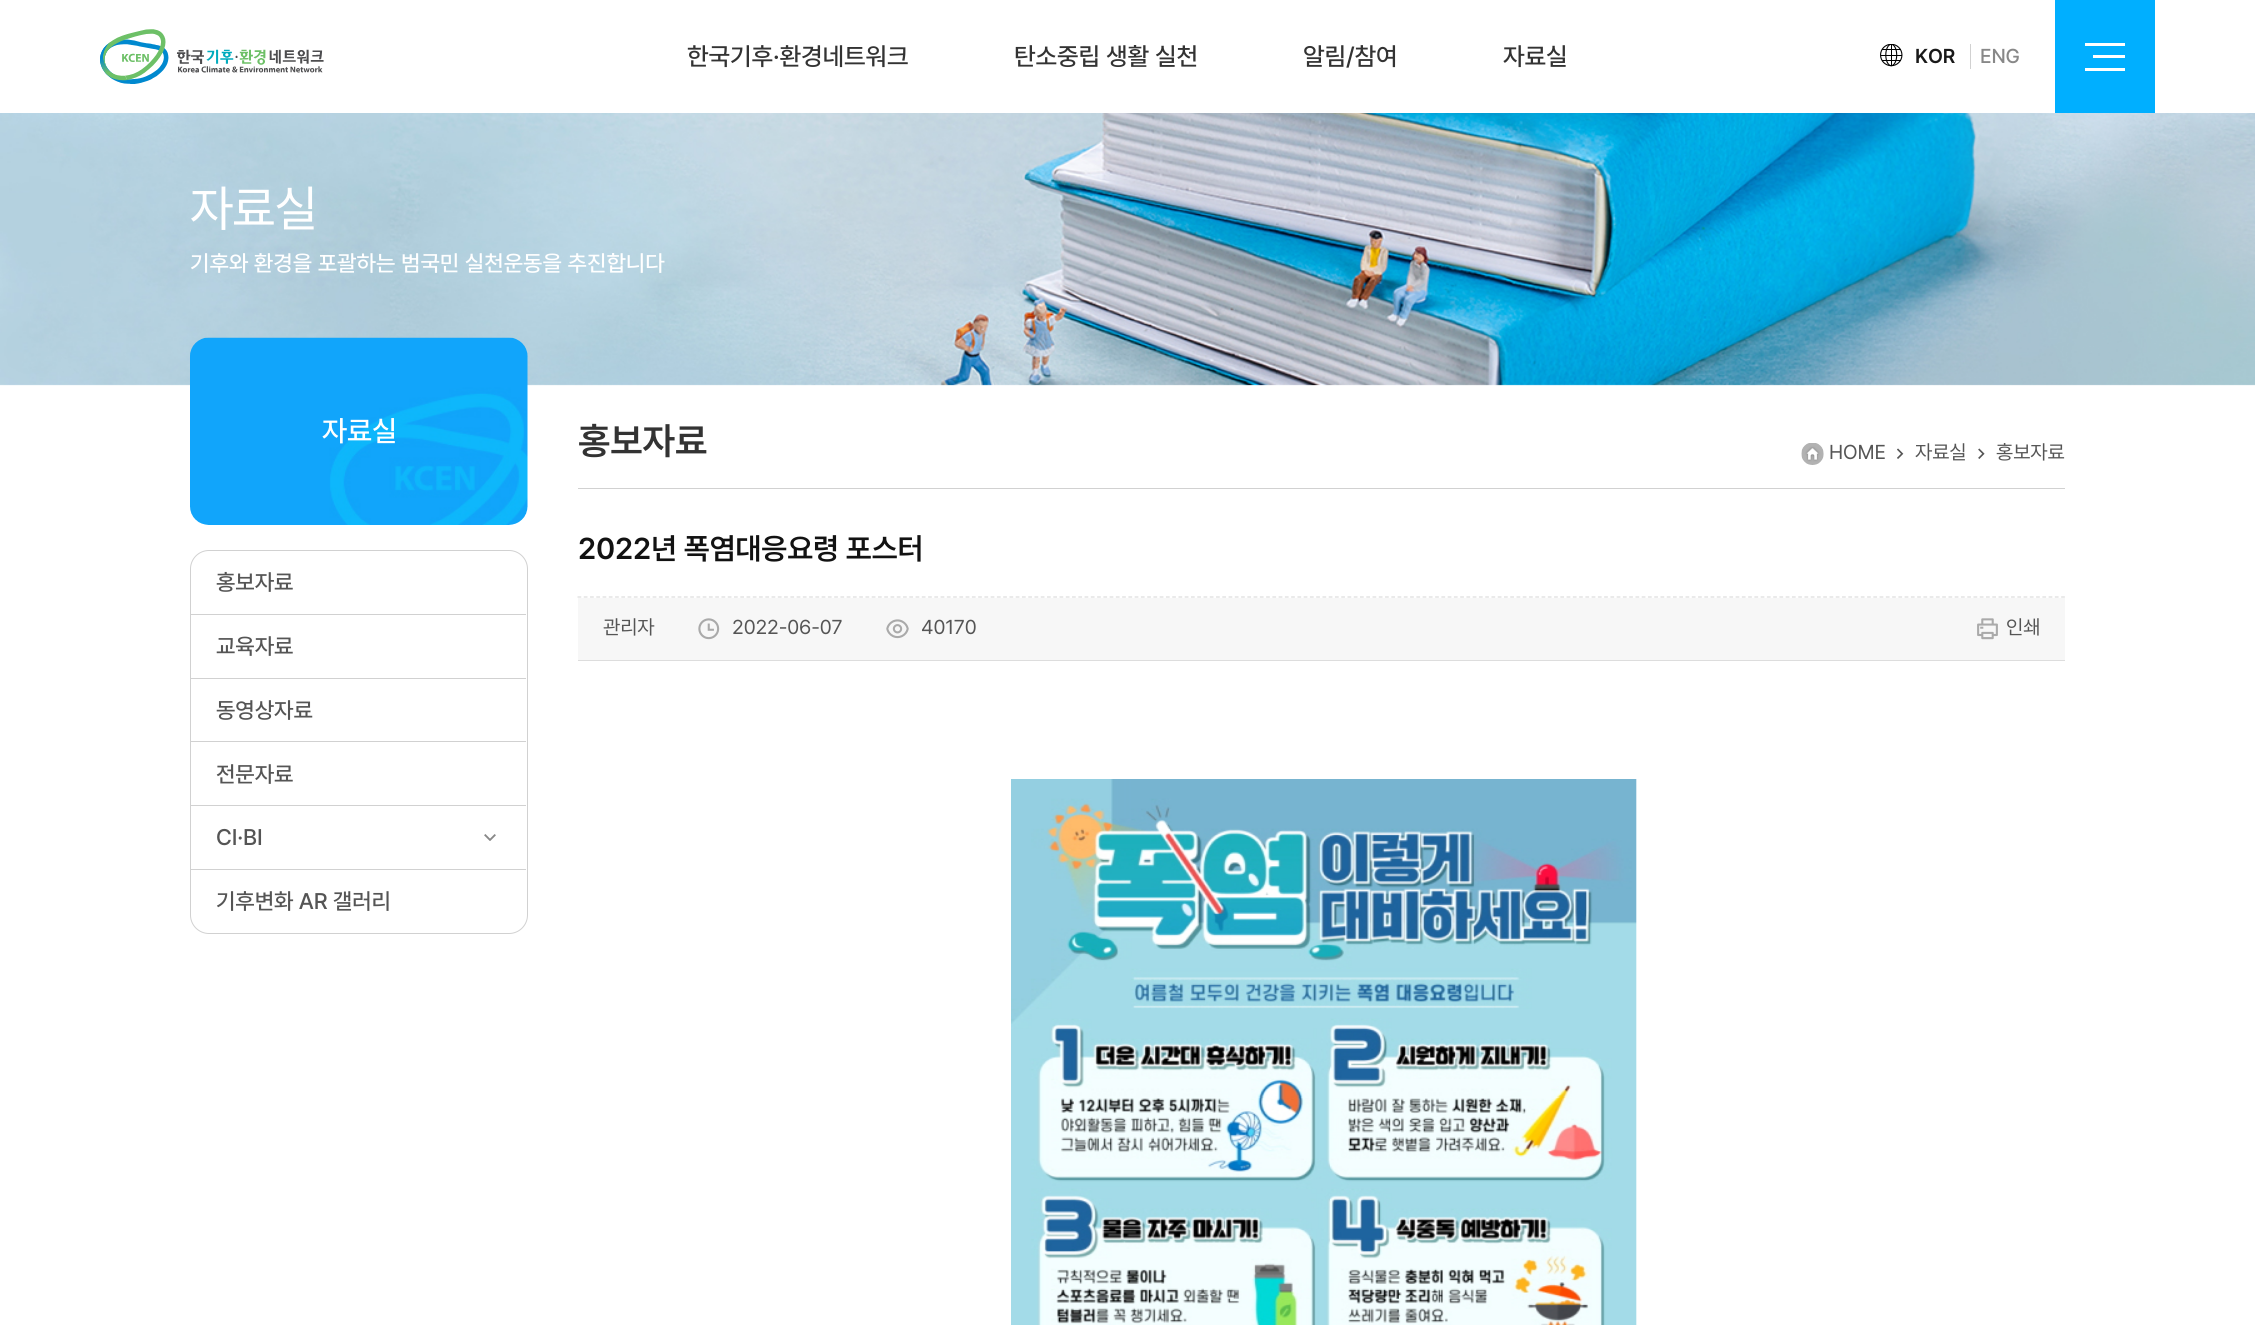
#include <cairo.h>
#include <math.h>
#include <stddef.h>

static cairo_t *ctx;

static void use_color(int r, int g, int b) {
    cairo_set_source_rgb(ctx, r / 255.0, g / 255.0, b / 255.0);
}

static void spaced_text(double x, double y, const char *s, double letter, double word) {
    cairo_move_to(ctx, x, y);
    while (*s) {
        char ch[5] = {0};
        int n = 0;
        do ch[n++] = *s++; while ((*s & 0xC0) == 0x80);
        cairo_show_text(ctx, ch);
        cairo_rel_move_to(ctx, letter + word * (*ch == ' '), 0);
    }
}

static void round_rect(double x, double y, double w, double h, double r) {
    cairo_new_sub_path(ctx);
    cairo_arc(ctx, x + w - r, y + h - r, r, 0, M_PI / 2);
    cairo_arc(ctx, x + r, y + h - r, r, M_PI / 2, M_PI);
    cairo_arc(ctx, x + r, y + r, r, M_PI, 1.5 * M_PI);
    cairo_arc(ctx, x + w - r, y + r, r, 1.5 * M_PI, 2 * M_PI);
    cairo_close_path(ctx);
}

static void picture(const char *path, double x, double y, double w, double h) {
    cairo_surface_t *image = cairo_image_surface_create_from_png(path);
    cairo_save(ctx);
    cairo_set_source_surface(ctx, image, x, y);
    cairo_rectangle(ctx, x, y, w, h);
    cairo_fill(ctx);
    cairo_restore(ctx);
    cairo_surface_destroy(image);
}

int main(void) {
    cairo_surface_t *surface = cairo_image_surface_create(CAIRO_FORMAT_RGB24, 2255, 1325);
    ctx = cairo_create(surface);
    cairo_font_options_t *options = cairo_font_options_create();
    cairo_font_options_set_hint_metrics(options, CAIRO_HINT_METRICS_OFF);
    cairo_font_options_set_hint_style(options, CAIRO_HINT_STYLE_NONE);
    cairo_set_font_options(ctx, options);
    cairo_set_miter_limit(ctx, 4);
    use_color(255, 255, 255);
    cairo_paint(ctx);
    picture("img1.png", 100, 29, 224, 55);
    cairo_select_font_face(ctx, "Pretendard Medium", CAIRO_FONT_SLANT_NORMAL, CAIRO_FONT_WEIGHT_NORMAL);
    cairo_set_font_size(ctx, 25);
    use_color(51, 51, 51);
    spaced_text(687, 65, "한국기후·환경네트워크", -0.1, 0);
    spaced_text(1014, 65, "탄소중립 생활 실천", -0.1, 0);
    spaced_text(1303, 65, "알림/참여", -0.1, 0);
    spaced_text(1503, 65, "자료실", -0.1, 0);
    picture("img2.png", 1880, 44, 23, 23);
    cairo_select_font_face(ctx, "Pretendard SemiBold", CAIRO_FONT_SLANT_NORMAL, CAIRO_FONT_WEIGHT_NORMAL);
    cairo_set_font_size(ctx, 20);
    use_color(25, 25, 25);
    spaced_text(1915, 63, "KOR", -0.1, 0);
    use_color(209, 209, 209);
    cairo_rectangle(ctx, 1970, 44, 1, 25);
    cairo_fill(ctx);
    cairo_select_font_face(ctx, "Pretendard Medium", CAIRO_FONT_SLANT_NORMAL, CAIRO_FONT_WEIGHT_NORMAL);
    use_color(136, 136, 136);
    spaced_text(1980, 63, "ENG", -0.1, 0);
    use_color(0, 175, 255);
    cairo_rectangle(ctx, 2055, 0, 100, 113);
    cairo_fill(ctx);
    use_color(255, 255, 255);
    cairo_rectangle(ctx, 2085, 43, 40, 3);
    cairo_fill(ctx);
    cairo_rectangle(ctx, 2093, 55, 32, 3);
    cairo_fill(ctx);
    cairo_rectangle(ctx, 2085, 68, 40, 3);
    cairo_fill(ctx);
    picture("img3.png", 0, 113, 2255, 273);
    cairo_select_font_face(ctx, "Pretendard", CAIRO_FONT_SLANT_NORMAL, CAIRO_FONT_WEIGHT_NORMAL);
    cairo_set_font_size(ctx, 50);
    spaced_text(190, 226, "자료실", -1, 0);
    cairo_select_font_face(ctx, "Pretendard Medium", CAIRO_FONT_SLANT_NORMAL, CAIRO_FONT_WEIGHT_NORMAL);
    cairo_set_font_size(ctx, 22.5);
    cairo_move_to(ctx, 190, 271);
    cairo_show_text(ctx, "기후와 환경을 포괄하는 범국민 실천운동을 추진합니다");
    picture("img4.png", 190, 337, 338, 188);
    cairo_set_font_size(ctx, 29);
    spaced_text(322, 441, "자료실", -0.1, 0);
    round_rect(190.5, 550.5, 337, 383, 18.5);
    use_color(209, 209, 209);
    cairo_set_line_width(ctx, 1);
    cairo_stroke(ctx);
    cairo_set_font_size(ctx, 22.5);
    use_color(85, 85, 85);
    spaced_text(216, 590, "홍보자료", -0.1, 0);
    use_color(209, 209, 209);
    cairo_rectangle(ctx, 191, 614, 335, 1);
    cairo_fill(ctx);
    use_color(85, 85, 85);
    spaced_text(216, 654, "교육자료", -0.1, 0);
    use_color(209, 209, 209);
    cairo_rectangle(ctx, 191, 678, 335, 1);
    cairo_fill(ctx);
    use_color(85, 85, 85);
    spaced_text(216, 718, "동영상자료", -0.1, 0);
    use_color(209, 209, 209);
    cairo_rectangle(ctx, 191, 741, 335, 1);
    cairo_fill(ctx);
    use_color(85, 85, 85);
    spaced_text(216, 782, "전문자료", -0.1, 0);
    use_color(209, 209, 209);
    cairo_rectangle(ctx, 191, 805, 335, 1);
    cairo_fill(ctx);
    use_color(85, 85, 85);
    spaced_text(216, 845, "CI·BI", -0.1, 0);
    picture("img5.png", 484, 834, 12, 7);
    use_color(209, 209, 209);
    cairo_rectangle(ctx, 191, 869, 335, 1);
    cairo_fill(ctx);
    use_color(85, 85, 85);
    spaced_text(216, 909, "기후변화 AR 갤러리", -0.1, 0);
    use_color(209, 209, 209);
    cairo_rectangle(ctx, 578, 488, 1487, 1);
    cairo_fill(ctx);
    cairo_select_font_face(ctx, "Pretendard SemiBold", CAIRO_FONT_SLANT_NORMAL, CAIRO_FONT_WEIGHT_NORMAL);
    cairo_set_font_size(ctx, 37.5);
    use_color(51, 51, 51);
    spaced_text(578, 454, "홍보자료", -0.1, 0);
    picture("img6.png", 1801, 443, 23, 22);
    cairo_select_font_face(ctx, "Pretendard", CAIRO_FONT_SLANT_NORMAL, CAIRO_FONT_WEIGHT_NORMAL);
    cairo_set_font_size(ctx, 20);
    use_color(85, 85, 85);
    spaced_text(1829, 459, "HOME", -0.1, 0);
    picture("img7.png", 1897, 448, 7, 11);
    spaced_text(1915, 459, "자료실", -0.1, 0);
    picture("img8.png", 1978, 448, 7, 11);
    spaced_text(1996, 459, "홍보자료", -0.1, 0);
    cairo_new_path(ctx);
    cairo_move_to(ctx, 577.5, 597);
    cairo_line_to(ctx, 2065, 597);
    use_color(221, 221, 221);
    cairo_set_line_width(ctx, 1.2);
    cairo_set_dash(ctx, (double[]){3.75, 2.51}, 2, 0);
    cairo_stroke(ctx);
    cairo_select_font_face(ctx, "Pretendard SemiBold", CAIRO_FONT_SLANT_NORMAL, CAIRO_FONT_WEIGHT_NORMAL);
    cairo_set_font_size(ctx, 30);
    use_color(18, 18, 18);
    spaced_text(578, 559, "2022년 폭염대응요령 포스터", -0.1, 0);
    use_color(247, 247, 247);
    cairo_rectangle(ctx, 578, 598, 1487, 62);
    cairo_fill(ctx);
    use_color(221, 221, 221);
    cairo_rectangle(ctx, 578, 660, 1487, 1);
    cairo_fill(ctx);
    cairo_select_font_face(ctx, "Pretendard", CAIRO_FONT_SLANT_NORMAL, CAIRO_FONT_WEIGHT_NORMAL);
    cairo_set_font_size(ctx, 20);
    use_color(85, 85, 85);
    spaced_text(603, 634, "관리자", -0.1, 0);
    picture("img9.png", 698, 618, 22, 22);
    spaced_text(732, 634, "2022-06-07", -0.1, 0);
    picture("img10.png", 886, 619, 23, 20);
    spaced_text(921, 634, "40170", -0.1, 0);
    picture("img11.png", 1977, 618, 21, 22);
    spaced_text(2006, 634, "인쇄", -0.1, 0);
    picture("img12.png", 1011, 779, 626, 546);
    cairo_surface_write_to_png(surface, "result.png");
    cairo_font_options_destroy(options);
    cairo_destroy(ctx);
    cairo_surface_destroy(surface);
    return 0;
}
